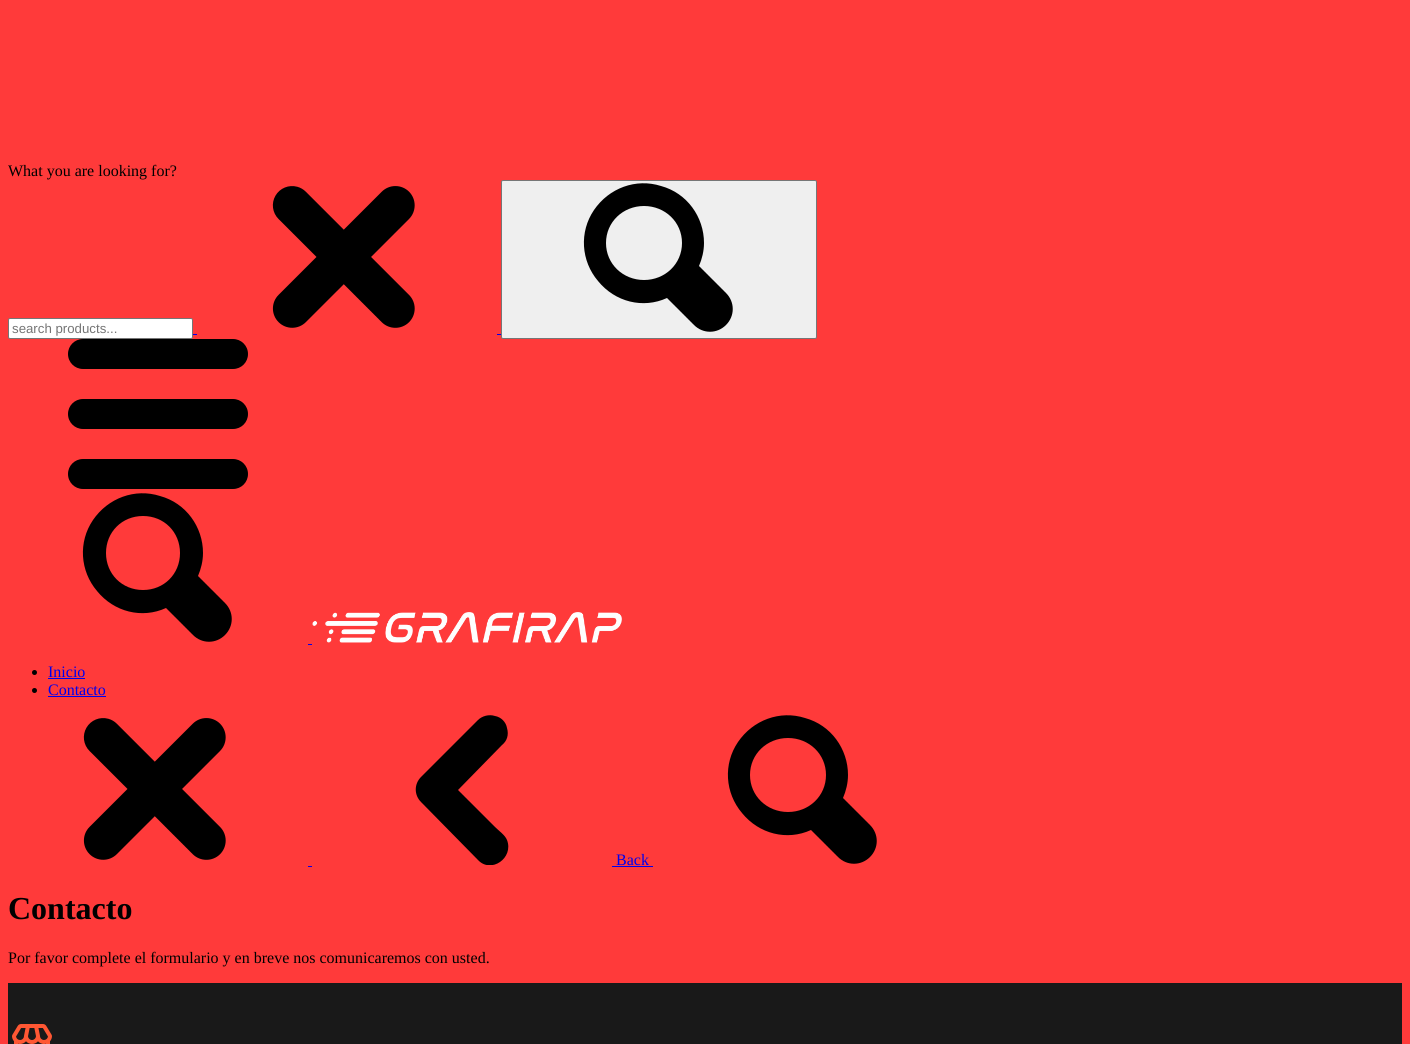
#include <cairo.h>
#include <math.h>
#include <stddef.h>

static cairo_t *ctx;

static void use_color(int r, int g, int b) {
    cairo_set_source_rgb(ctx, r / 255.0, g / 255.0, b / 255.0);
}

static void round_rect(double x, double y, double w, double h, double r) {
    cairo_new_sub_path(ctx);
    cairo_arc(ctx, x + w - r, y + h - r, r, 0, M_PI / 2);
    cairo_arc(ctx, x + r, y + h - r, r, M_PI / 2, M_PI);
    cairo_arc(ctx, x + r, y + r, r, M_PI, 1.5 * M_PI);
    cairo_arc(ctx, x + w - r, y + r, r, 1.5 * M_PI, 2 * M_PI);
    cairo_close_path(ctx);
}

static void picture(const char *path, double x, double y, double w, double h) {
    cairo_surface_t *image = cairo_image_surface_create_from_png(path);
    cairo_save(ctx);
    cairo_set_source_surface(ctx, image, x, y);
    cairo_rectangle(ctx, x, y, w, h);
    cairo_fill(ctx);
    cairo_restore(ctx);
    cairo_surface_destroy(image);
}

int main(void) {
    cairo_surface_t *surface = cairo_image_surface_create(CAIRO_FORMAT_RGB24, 1410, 1044);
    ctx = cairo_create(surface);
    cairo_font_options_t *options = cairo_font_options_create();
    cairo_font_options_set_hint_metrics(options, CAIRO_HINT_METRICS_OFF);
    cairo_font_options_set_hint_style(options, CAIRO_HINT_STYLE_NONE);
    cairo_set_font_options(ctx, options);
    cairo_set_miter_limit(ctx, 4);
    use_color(255, 58, 58);
    cairo_paint(ctx);
    cairo_select_font_face(ctx, "Liberation Serif", CAIRO_FONT_SLANT_NORMAL, CAIRO_FONT_WEIGHT_NORMAL);
    cairo_set_font_size(ctx, 16);
    use_color(0, 0, 0);
    cairo_move_to(ctx, 8, 176);
    cairo_show_text(ctx, "What you are looking for?");
    picture("img1.png", 272, 186, 143, 142);
    use_color(239, 239, 239);
    round_rect(501.5, 180.5, 315, 158, 1.5);
    cairo_fill_preserve(ctx);
    use_color(118, 118, 118);
    cairo_set_line_width(ctx, 1);
    cairo_stroke(ctx);
    use_color(0, 0, 0);
    cairo_set_fill_rule(ctx, CAIRO_FILL_RULE_EVEN_ODD);
    cairo_new_path(ctx);
    cairo_move_to(ctx, 667, 298);
    cairo_line_to(ctx, 694, 325);
    cairo_curve_to(ctx, 703, 334, 717, 334, 726, 325);
    cairo_curve_to(ctx, 735, 316, 735, 302, 726, 293);
    cairo_line_to(ctx, 699, 266);
    cairo_curve_to(ctx, 702, 259, 704, 251, 704, 243);
    cairo_curve_to(ctx, 704, 217, 687, 193, 661, 186);
    cairo_curve_to(ctx, 636, 178, 609, 188, 594, 210);
    cairo_curve_to(ctx, 579, 232, 581, 261, 598, 281);
    cairo_curve_to(ctx, 615, 302, 643, 309, 667, 298);
    cairo_close_path(ctx);
    cairo_move_to(ctx, 644, 280);
    cairo_curve_to(ctx, 665, 280, 682, 264, 682, 243);
    cairo_curve_to(ctx, 682, 222, 665, 206, 644, 206);
    cairo_curve_to(ctx, 623, 206, 606, 222, 606, 243);
    cairo_curve_to(ctx, 606, 264, 623, 280, 644, 280);
    cairo_close_path(ctx);
    cairo_fill(ctx);
    use_color(255, 255, 255);
    round_rect(8.5, 318.5, 184, 20, 1.5);
    cairo_fill_preserve(ctx);
    use_color(118, 118, 118);
    cairo_stroke(ctx);
    cairo_select_font_face(ctx, "Liberation Sans", CAIRO_FONT_SLANT_NORMAL, CAIRO_FONT_WEIGHT_NORMAL);
    cairo_set_font_size(ctx, 13.25);
    use_color(117, 117, 117);
    cairo_move_to(ctx, 12, 333);
    cairo_show_text(ctx, "search products...");
    use_color(0, 0, 238);
    cairo_rectangle(ctx, 193, 334, 4, 1);
    cairo_fill(ctx);
    cairo_rectangle(ctx, 497, 334, 4, 1);
    cairo_fill(ctx);
    picture("img2.png", 68, 339, 180, 150);
    use_color(0, 0, 0);
    cairo_new_path(ctx);
    cairo_move_to(ctx, 166, 608);
    cairo_line_to(ctx, 193, 635);
    cairo_curve_to(ctx, 202, 644, 216, 644, 225, 635);
    cairo_curve_to(ctx, 234, 626, 234, 612, 225, 603);
    cairo_line_to(ctx, 198, 576);
    cairo_curve_to(ctx, 201, 569, 203, 561, 203, 553);
    cairo_curve_to(ctx, 203, 527, 186, 503, 160, 496);
    cairo_curve_to(ctx, 135, 488, 108, 498, 93, 520);
    cairo_curve_to(ctx, 78, 542, 80, 571, 97, 591);
    cairo_curve_to(ctx, 114, 612, 142, 619, 166, 608);
    cairo_close_path(ctx);
    cairo_move_to(ctx, 143, 590);
    cairo_curve_to(ctx, 164, 590, 180, 574, 180, 553);
    cairo_curve_to(ctx, 180, 532, 164, 516, 143, 516);
    cairo_curve_to(ctx, 122, 516, 106, 532, 106, 553);
    cairo_curve_to(ctx, 106, 574, 122, 590, 143, 590);
    cairo_close_path(ctx);
    cairo_fill(ctx);
    picture("img3.png", 312, 612, 310, 31);
    use_color(0, 0, 238);
    cairo_rectangle(ctx, 308, 644, 4, 1);
    cairo_fill(ctx);
    use_color(0, 0, 0);
    cairo_arc(ctx, 34.5, 672.5, 2.5, 0, 2 * M_PI);
    cairo_fill(ctx);
    cairo_select_font_face(ctx, "Liberation Serif", CAIRO_FONT_SLANT_NORMAL, CAIRO_FONT_WEIGHT_NORMAL);
    cairo_set_font_size(ctx, 16);
    use_color(0, 0, 238);
    cairo_move_to(ctx, 48, 677);
    cairo_show_text(ctx, "Inicio");
    cairo_rectangle(ctx, 48, 678, 37, 1);
    cairo_fill(ctx);
    use_color(0, 0, 0);
    cairo_arc(ctx, 34.5, 690.5, 2.5, 0, 2 * M_PI);
    cairo_fill(ctx);
    use_color(0, 0, 238);
    cairo_move_to(ctx, 48, 695);
    cairo_show_text(ctx, "Contacto");
    cairo_rectangle(ctx, 48, 696, 58, 1);
    cairo_fill(ctx);
    picture("img1.png", 83, 718, 143, 142);
    cairo_move_to(ctx, 616, 865);
    cairo_show_text(ctx, "Back");
    cairo_rectangle(ctx, 612, 866, 41, 1);
    cairo_fill(ctx);
    cairo_save(ctx);
    cairo_set_fill_rule(ctx, CAIRO_FILL_RULE_WINDING);
    cairo_rectangle(ctx, 312, 715, 300, 150);
    cairo_clip(ctx);
    use_color(0, 0, 0);
    cairo_set_fill_rule(ctx, CAIRO_FILL_RULE_EVEN_ODD);
    cairo_new_path(ctx);
    cairo_move_to(ctx, 478, 860);
    cairo_curve_to(ctx, 491, 874, 514, 858, 507, 840);
    cairo_curve_to(ctx, 505, 835, 499, 831, 495, 827);
    cairo_line_to(ctx, 458, 790);
    cairo_line_to(ctx, 502, 745);
    cairo_curve_to(ctx, 507, 741, 509, 735, 507, 728);
    cairo_curve_to(ctx, 506, 722, 501, 717, 495, 716);
    cairo_curve_to(ctx, 489, 714, 482, 716, 478, 720);
    cairo_line_to(ctx, 421, 777);
    cairo_curve_to(ctx, 414, 784, 414, 795, 421, 802);
    cairo_close_path(ctx);
    cairo_fill(ctx);
    cairo_restore(ctx);
    use_color(0, 0, 0);
    cairo_new_path(ctx);
    cairo_move_to(ctx, 811, 830);
    cairo_line_to(ctx, 838, 857);
    cairo_curve_to(ctx, 847, 866, 861, 866, 870, 857);
    cairo_curve_to(ctx, 879, 848, 879, 834, 870, 825);
    cairo_line_to(ctx, 843, 798);
    cairo_curve_to(ctx, 846, 791, 848, 783, 848, 775);
    cairo_curve_to(ctx, 848, 749, 831, 725, 805, 718);
    cairo_curve_to(ctx, 780, 710, 753, 720, 738, 742);
    cairo_curve_to(ctx, 723, 764, 725, 793, 742, 813);
    cairo_curve_to(ctx, 759, 834, 787, 841, 811, 830);
    cairo_close_path(ctx);
    cairo_move_to(ctx, 788, 812);
    cairo_curve_to(ctx, 809, 812, 826, 796, 826, 775);
    cairo_curve_to(ctx, 826, 754, 809, 738, 788, 738);
    cairo_curve_to(ctx, 767, 738, 750, 754, 750, 775);
    cairo_curve_to(ctx, 750, 796, 767, 812, 788, 812);
    cairo_close_path(ctx);
    cairo_fill(ctx);
    use_color(0, 0, 238);
    cairo_rectangle(ctx, 308, 866, 4, 1);
    cairo_fill(ctx);
    cairo_select_font_face(ctx, "Liberation Serif", CAIRO_FONT_SLANT_NORMAL, CAIRO_FONT_WEIGHT_BOLD);
    cairo_set_font_size(ctx, 32);
    use_color(0, 0, 0);
    cairo_move_to(ctx, 8, 919);
    cairo_show_text(ctx, "Contacto");
    cairo_select_font_face(ctx, "Liberation Serif", CAIRO_FONT_SLANT_NORMAL, CAIRO_FONT_WEIGHT_NORMAL);
    cairo_set_font_size(ctx, 16);
    cairo_move_to(ctx, 8, 963);
    cairo_show_text(ctx, "Por favor complete el formulario y en breve nos comunicaremos con usted.");
    use_color(25, 25, 25);
    cairo_rectangle(ctx, 8, 983, 1394, 61);
    cairo_fill(ctx);
    picture("img4.png", 12, 1024, 40, 20);
    cairo_surface_write_to_png(surface, "result.png");
    cairo_font_options_destroy(options);
    cairo_destroy(ctx);
    cairo_surface_destroy(surface);
    return 0;
}
